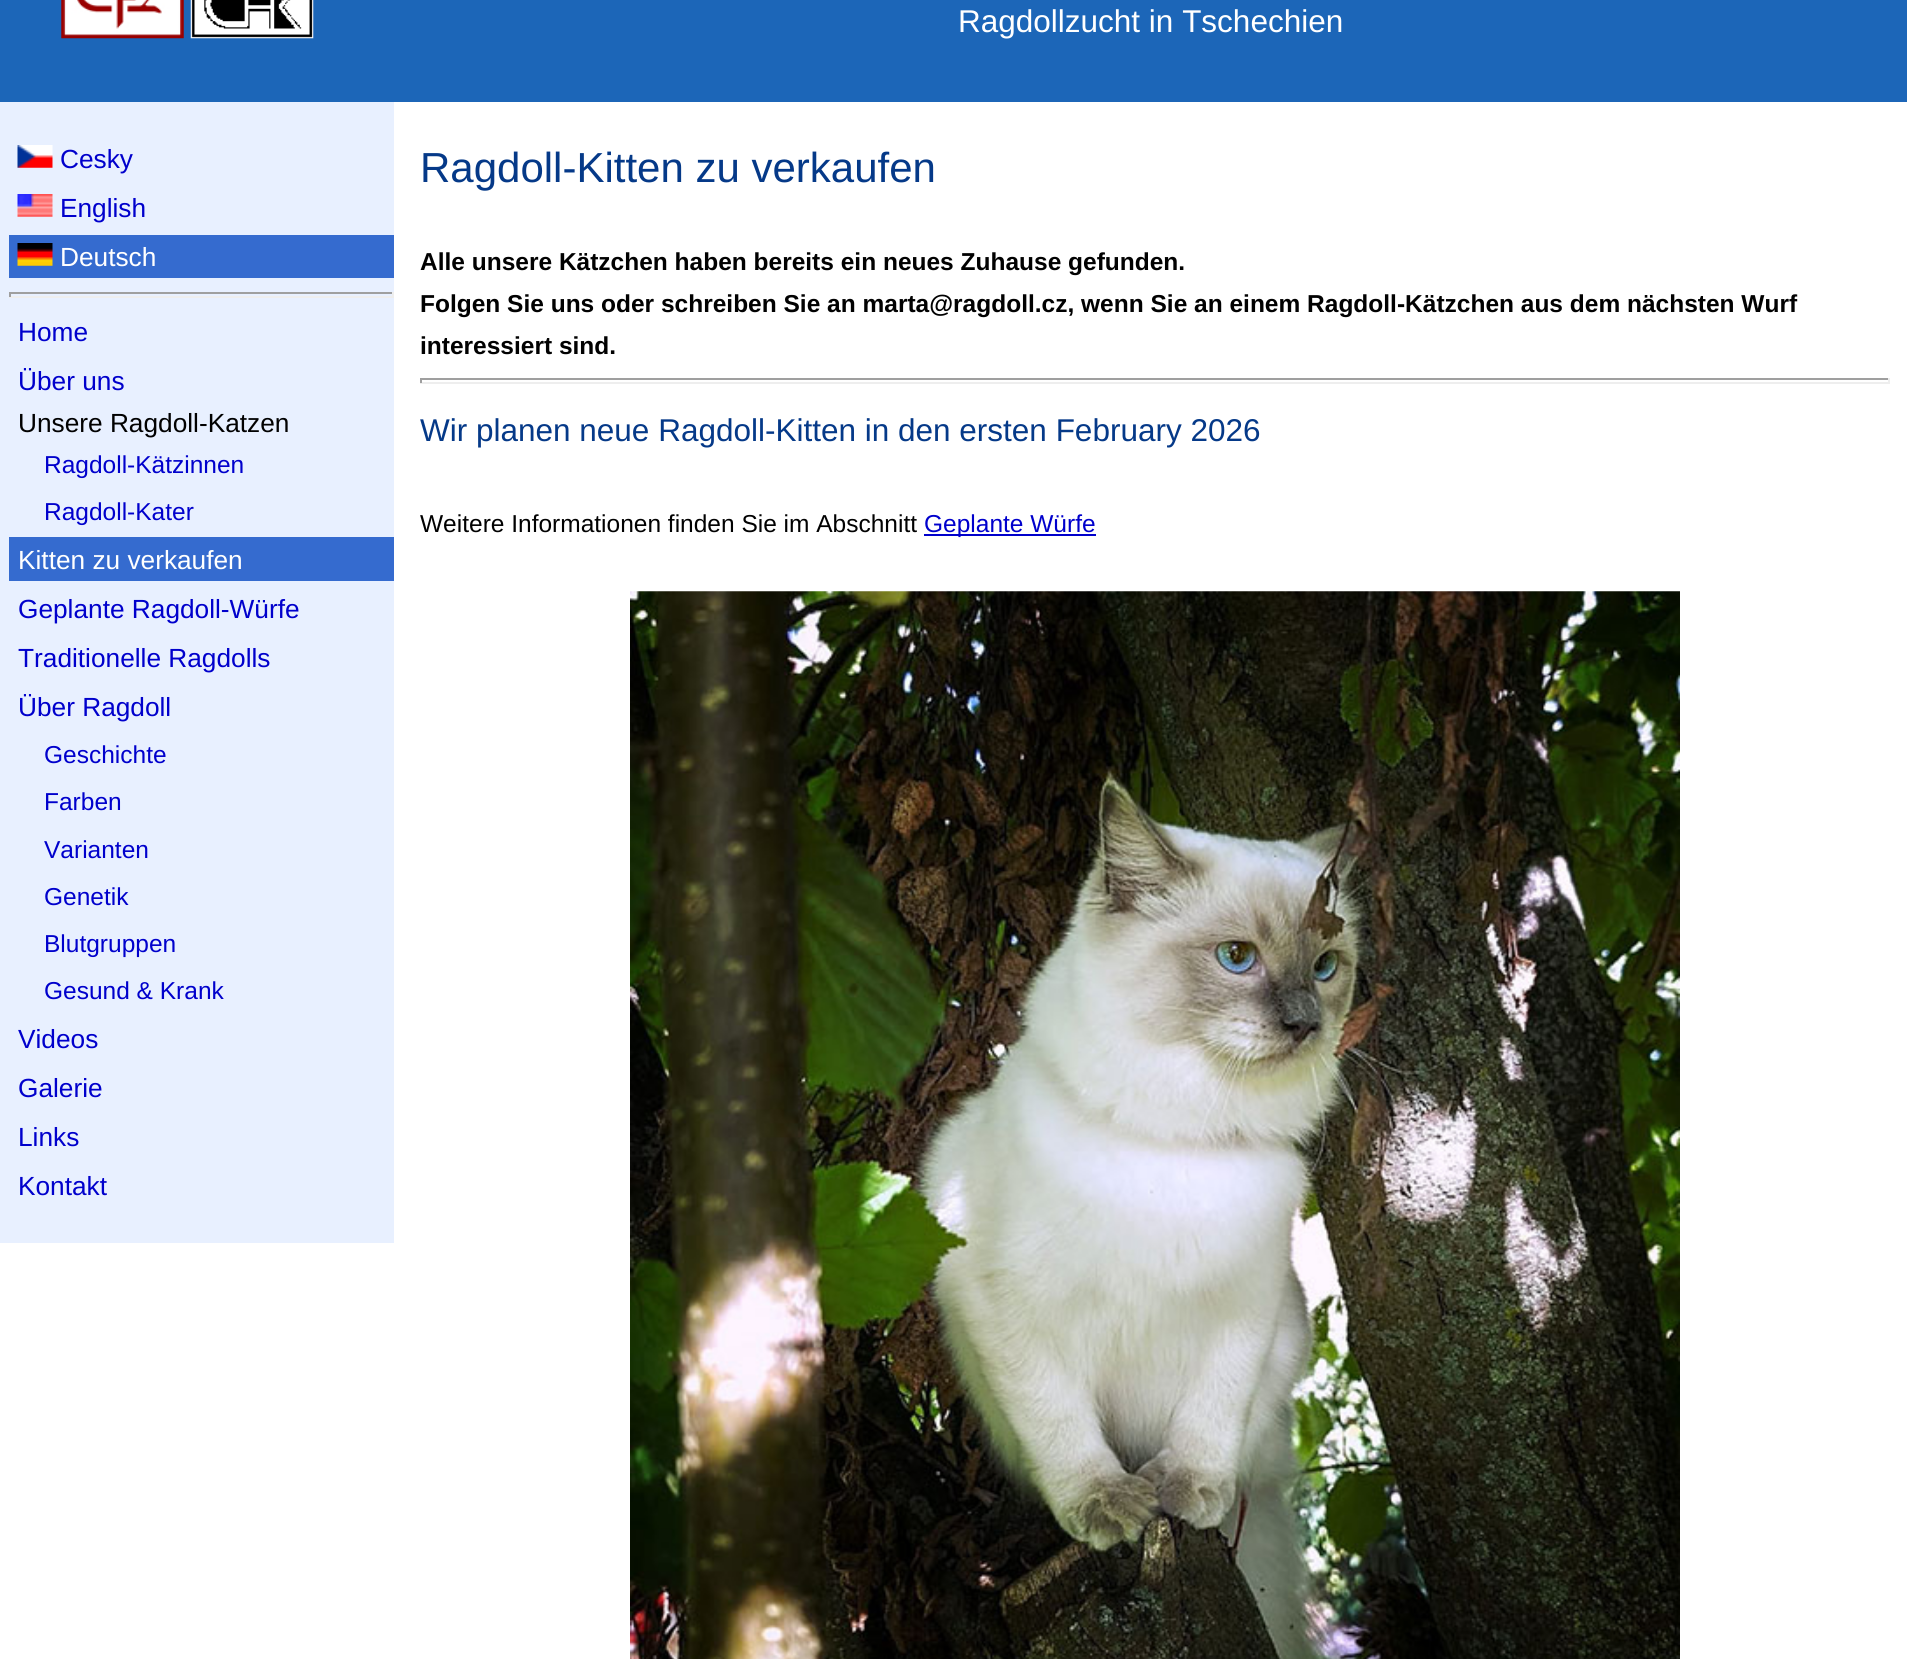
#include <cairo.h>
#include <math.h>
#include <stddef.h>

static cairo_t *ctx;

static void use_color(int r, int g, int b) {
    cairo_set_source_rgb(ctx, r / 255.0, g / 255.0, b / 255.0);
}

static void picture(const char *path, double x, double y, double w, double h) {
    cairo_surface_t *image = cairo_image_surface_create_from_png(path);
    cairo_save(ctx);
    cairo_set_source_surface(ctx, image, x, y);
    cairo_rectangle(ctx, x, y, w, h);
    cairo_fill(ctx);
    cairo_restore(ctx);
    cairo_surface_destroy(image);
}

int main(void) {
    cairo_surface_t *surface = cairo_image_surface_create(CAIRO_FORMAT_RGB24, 1907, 1659);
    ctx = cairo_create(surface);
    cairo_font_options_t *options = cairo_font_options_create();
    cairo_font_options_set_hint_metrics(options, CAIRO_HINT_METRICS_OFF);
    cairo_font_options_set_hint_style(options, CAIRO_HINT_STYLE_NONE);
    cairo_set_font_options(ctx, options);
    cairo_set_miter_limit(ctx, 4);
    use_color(255, 255, 255);
    cairo_paint(ctx);
    use_color(28, 102, 184);
    cairo_rectangle(ctx, 0, 0, 1907, 102);
    cairo_fill(ctx);
    picture("img1.png", 61, 0, 123, 39);
    picture("img2.png", 190, 0, 124, 39);
    cairo_select_font_face(ctx, "Liberation Sans", CAIRO_FONT_SLANT_NORMAL, CAIRO_FONT_WEIGHT_NORMAL);
    cairo_set_font_size(ctx, 31.5);
    use_color(255, 255, 255);
    cairo_move_to(ctx, 958, 32);
    cairo_show_text(ctx, "Ragdollzucht in Tschechien");
    use_color(232, 240, 255);
    cairo_rectangle(ctx, 0, 102, 394, 1141);
    cairo_fill(ctx);
    picture("img3.png", 17, 145, 36, 23);
    cairo_set_font_size(ctx, 26.25);
    use_color(0, 0, 204);
    cairo_move_to(ctx, 60, 168);
    cairo_show_text(ctx, "Cesky");
    picture("img4.png", 17, 194, 36, 23);
    cairo_move_to(ctx, 60, 217);
    cairo_show_text(ctx, "English");
    use_color(53, 107, 207);
    cairo_rectangle(ctx, 9, 235, 385, 43);
    cairo_fill(ctx);
    picture("img5.png", 17, 243, 36, 23);
    use_color(255, 255, 255);
    cairo_move_to(ctx, 60, 266);
    cairo_show_text(ctx, "Deutsch");
    use_color(159, 159, 159);
    cairo_rectangle(ctx, 9, 292, 385, 2);
    cairo_fill(ctx);
    use_color(238, 238, 238);
    cairo_rectangle(ctx, 392, 292, 2, 5);
    cairo_fill(ctx);
    cairo_rectangle(ctx, 9, 296, 385, 2);
    cairo_fill(ctx);
    use_color(159, 159, 159);
    cairo_rectangle(ctx, 9, 292, 2, 5);
    cairo_fill(ctx);
    use_color(0, 0, 204);
    cairo_move_to(ctx, 18, 341);
    cairo_show_text(ctx, "Home");
    cairo_move_to(ctx, 18, 390);
    cairo_show_text(ctx, "Über uns");
    use_color(1, 1, 1);
    cairo_move_to(ctx, 18, 432);
    cairo_show_text(ctx, "Unsere Ragdoll-Katzen");
    cairo_set_font_size(ctx, 24.5);
    use_color(0, 0, 204);
    cairo_move_to(ctx, 44, 473);
    cairo_show_text(ctx, "Ragdoll-Kätzinnen");
    cairo_move_to(ctx, 44, 520);
    cairo_show_text(ctx, "Ragdoll-Kater");
    use_color(53, 107, 207);
    cairo_rectangle(ctx, 9, 537, 385, 44);
    cairo_fill(ctx);
    cairo_set_font_size(ctx, 26.25);
    use_color(255, 255, 255);
    cairo_move_to(ctx, 18, 569);
    cairo_show_text(ctx, "Kitten zu verkaufen");
    use_color(0, 0, 204);
    cairo_move_to(ctx, 18, 618);
    cairo_show_text(ctx, "Geplante Ragdoll-Würfe");
    cairo_move_to(ctx, 18, 667);
    cairo_show_text(ctx, "Traditionelle Ragdolls");
    cairo_move_to(ctx, 18, 716);
    cairo_show_text(ctx, "Über Ragdoll");
    cairo_set_font_size(ctx, 24.5);
    cairo_move_to(ctx, 44, 763);
    cairo_show_text(ctx, "Geschichte");
    cairo_move_to(ctx, 44, 810);
    cairo_show_text(ctx, "Farben");
    cairo_move_to(ctx, 44, 858);
    cairo_show_text(ctx, "Varianten");
    cairo_move_to(ctx, 44, 905);
    cairo_show_text(ctx, "Genetik");
    cairo_move_to(ctx, 44, 952);
    cairo_show_text(ctx, "Blutgruppen");
    cairo_move_to(ctx, 44, 999);
    cairo_show_text(ctx, "Gesund & Krank");
    cairo_set_font_size(ctx, 26.25);
    cairo_move_to(ctx, 18, 1048);
    cairo_show_text(ctx, "Videos");
    cairo_move_to(ctx, 18, 1097);
    cairo_show_text(ctx, "Galerie");
    cairo_move_to(ctx, 18, 1146);
    cairo_show_text(ctx, "Links");
    cairo_move_to(ctx, 18, 1195);
    cairo_show_text(ctx, "Kontakt");
    cairo_set_font_size(ctx, 42);
    use_color(5, 57, 136);
    cairo_move_to(ctx, 420, 182);
    cairo_show_text(ctx, "Ragdoll-Kitten zu verkaufen");
    cairo_select_font_face(ctx, "Liberation Sans", CAIRO_FONT_SLANT_NORMAL, CAIRO_FONT_WEIGHT_BOLD);
    cairo_set_font_size(ctx, 24.5);
    use_color(1, 1, 1);
    cairo_move_to(ctx, 420, 270);
    cairo_show_text(ctx, "Alle unsere Kätzchen haben bereits ein neues Zuhause gefunden.");
    cairo_move_to(ctx, 420, 312);
    cairo_show_text(ctx, "Folgen Sie uns oder schreiben Sie an marta@ragdoll.cz, wenn Sie an einem Ragdoll-Kätzchen aus dem nächsten Wurf");
    cairo_move_to(ctx, 420, 354);
    cairo_show_text(ctx, "interessiert sind.");
    use_color(159, 159, 159);
    cairo_rectangle(ctx, 420, 378, 1470, 2);
    cairo_fill(ctx);
    use_color(238, 238, 238);
    cairo_rectangle(ctx, 1888, 378, 2, 5);
    cairo_fill(ctx);
    cairo_rectangle(ctx, 420, 382, 1470, 2);
    cairo_fill(ctx);
    use_color(159, 159, 159);
    cairo_rectangle(ctx, 420, 378, 2, 5);
    cairo_fill(ctx);
    cairo_select_font_face(ctx, "Liberation Sans", CAIRO_FONT_SLANT_NORMAL, CAIRO_FONT_WEIGHT_NORMAL);
    cairo_set_font_size(ctx, 31.5);
    use_color(5, 57, 136);
    cairo_move_to(ctx, 420, 441);
    cairo_show_text(ctx, "Wir planen neue Ragdoll-Kitten in den ersten February 2026");
    cairo_set_font_size(ctx, 24.5);
    use_color(1, 1, 1);
    cairo_move_to(ctx, 420, 532);
    cairo_show_text(ctx, "Weitere Informationen finden Sie im Abschnitt");
    use_color(0, 0, 204);
    cairo_rectangle(ctx, 924, 534, 172, 2);
    cairo_fill(ctx);
    cairo_move_to(ctx, 924, 532);
    cairo_show_text(ctx, "Geplante Würfe");
    picture("img6.png", 630, 591, 1050, 1068);
    cairo_surface_write_to_png(surface, "result.png");
    cairo_font_options_destroy(options);
    cairo_destroy(ctx);
    cairo_surface_destroy(surface);
    return 0;
}
